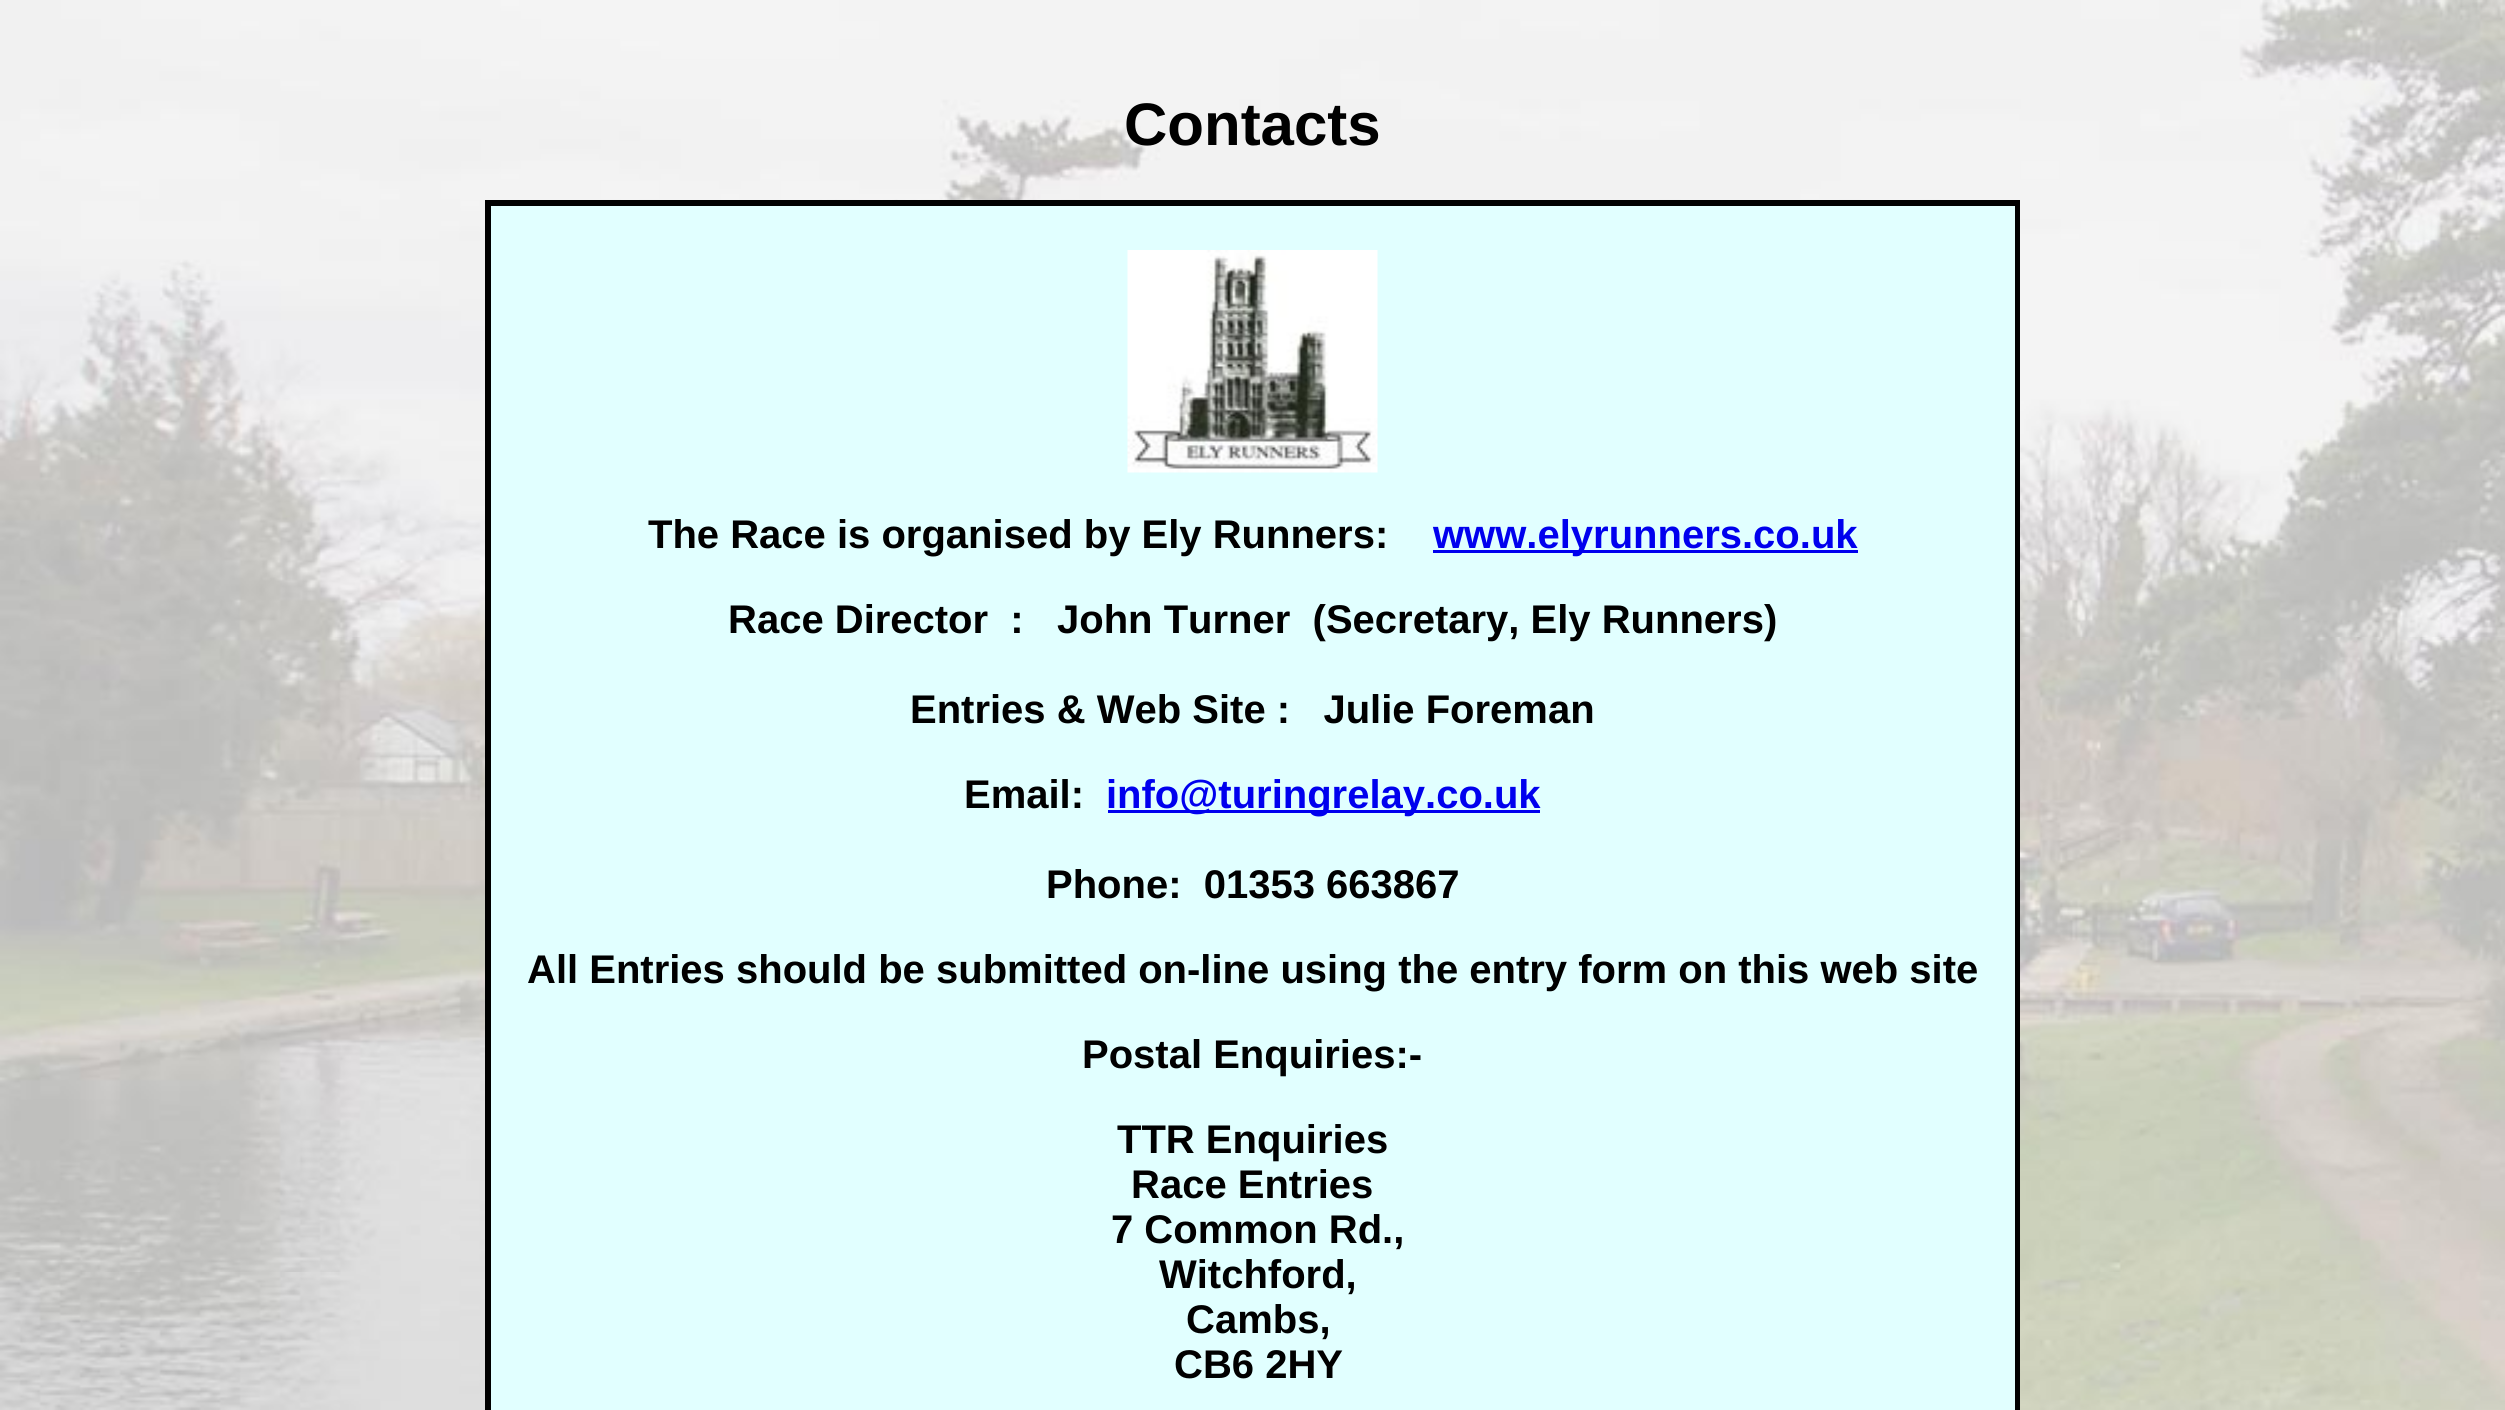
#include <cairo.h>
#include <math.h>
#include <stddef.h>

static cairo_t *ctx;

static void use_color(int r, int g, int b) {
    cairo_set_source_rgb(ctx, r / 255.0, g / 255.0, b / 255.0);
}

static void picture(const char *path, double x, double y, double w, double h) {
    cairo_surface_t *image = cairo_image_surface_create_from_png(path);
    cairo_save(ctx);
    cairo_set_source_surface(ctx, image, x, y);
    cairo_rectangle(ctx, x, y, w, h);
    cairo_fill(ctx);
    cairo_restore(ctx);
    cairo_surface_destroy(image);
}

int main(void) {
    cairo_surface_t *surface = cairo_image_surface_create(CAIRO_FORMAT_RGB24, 2505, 1410);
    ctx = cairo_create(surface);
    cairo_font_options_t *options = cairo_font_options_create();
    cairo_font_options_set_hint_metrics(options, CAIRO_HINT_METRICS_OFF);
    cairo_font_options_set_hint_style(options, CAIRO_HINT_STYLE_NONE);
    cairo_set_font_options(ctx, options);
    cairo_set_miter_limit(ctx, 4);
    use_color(255, 255, 255);
    cairo_paint(ctx);
    picture("img1.png", 0, 0, 2505, 1410);
    cairo_select_font_face(ctx, "Liberation Sans", CAIRO_FONT_SLANT_NORMAL, CAIRO_FONT_WEIGHT_BOLD);
    cairo_set_font_size(ctx, 60);
    use_color(0, 0, 0);
    cairo_move_to(ctx, 1124, 145);
    cairo_show_text(ctx, "Contacts");
    use_color(225, 255, 255);
    cairo_rectangle(ctx, 491, 206, 1524, 1204);
    cairo_fill(ctx);
    cairo_rectangle(ctx, 486.5, 201.5, 1532, 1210);
    use_color(0, 0, 0);
    cairo_set_line_width(ctx, 3);
    cairo_stroke(ctx);
    cairo_rectangle(ctx, 489.5, 204.5, 1527, 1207);
    cairo_stroke(ctx);
    picture("img2.png", 1127, 250, 251, 223);
    cairo_set_font_size(ctx, 40);
    cairo_move_to(ctx, 648, 548);
    cairo_show_text(ctx, "The Race is organised by Ely Runners:");
    use_color(0, 0, 238);
    cairo_rectangle(ctx, 1433, 550, 425, 3);
    cairo_fill(ctx);
    cairo_move_to(ctx, 1433, 548);
    cairo_show_text(ctx, "www.elyrunners.co.uk");
    use_color(0, 0, 0);
    cairo_move_to(ctx, 728, 633);
    cairo_show_text(ctx, "Race Director  :   John Turner  (Secretary, Ely Runners)");
    cairo_move_to(ctx, 910, 723);
    cairo_show_text(ctx, "Entries & Web Site :   Julie Foreman");
    cairo_move_to(ctx, 964, 808);
    cairo_show_text(ctx, "Email:");
    use_color(0, 0, 238);
    cairo_rectangle(ctx, 1108, 810, 432, 3);
    cairo_fill(ctx);
    cairo_move_to(ctx, 1106, 808);
    cairo_show_text(ctx, "info@turingrelay.co.uk");
    use_color(0, 0, 0);
    cairo_move_to(ctx, 1046, 898);
    cairo_show_text(ctx, "Phone:  01353 663867");
    cairo_move_to(ctx, 527, 983);
    cairo_show_text(ctx, "All Entries should be submitted on-line using the entry form on this web site");
    cairo_move_to(ctx, 1082, 1068);
    cairo_show_text(ctx, "Postal Enquiries:-");
    cairo_move_to(ctx, 1117, 1153);
    cairo_show_text(ctx, "TTR Enquiries");
    cairo_move_to(ctx, 1131, 1198);
    cairo_show_text(ctx, "Race Entries");
    cairo_move_to(ctx, 1111, 1243);
    cairo_show_text(ctx, "7 Common Rd.,");
    cairo_move_to(ctx, 1159, 1288);
    cairo_show_text(ctx, "Witchford,");
    cairo_move_to(ctx, 1186, 1333);
    cairo_show_text(ctx, "Cambs,");
    cairo_move_to(ctx, 1174, 1378);
    cairo_show_text(ctx, "CB6 2HY");
    cairo_surface_write_to_png(surface, "result.png");
    cairo_font_options_destroy(options);
    cairo_destroy(ctx);
    cairo_surface_destroy(surface);
    return 0;
}
